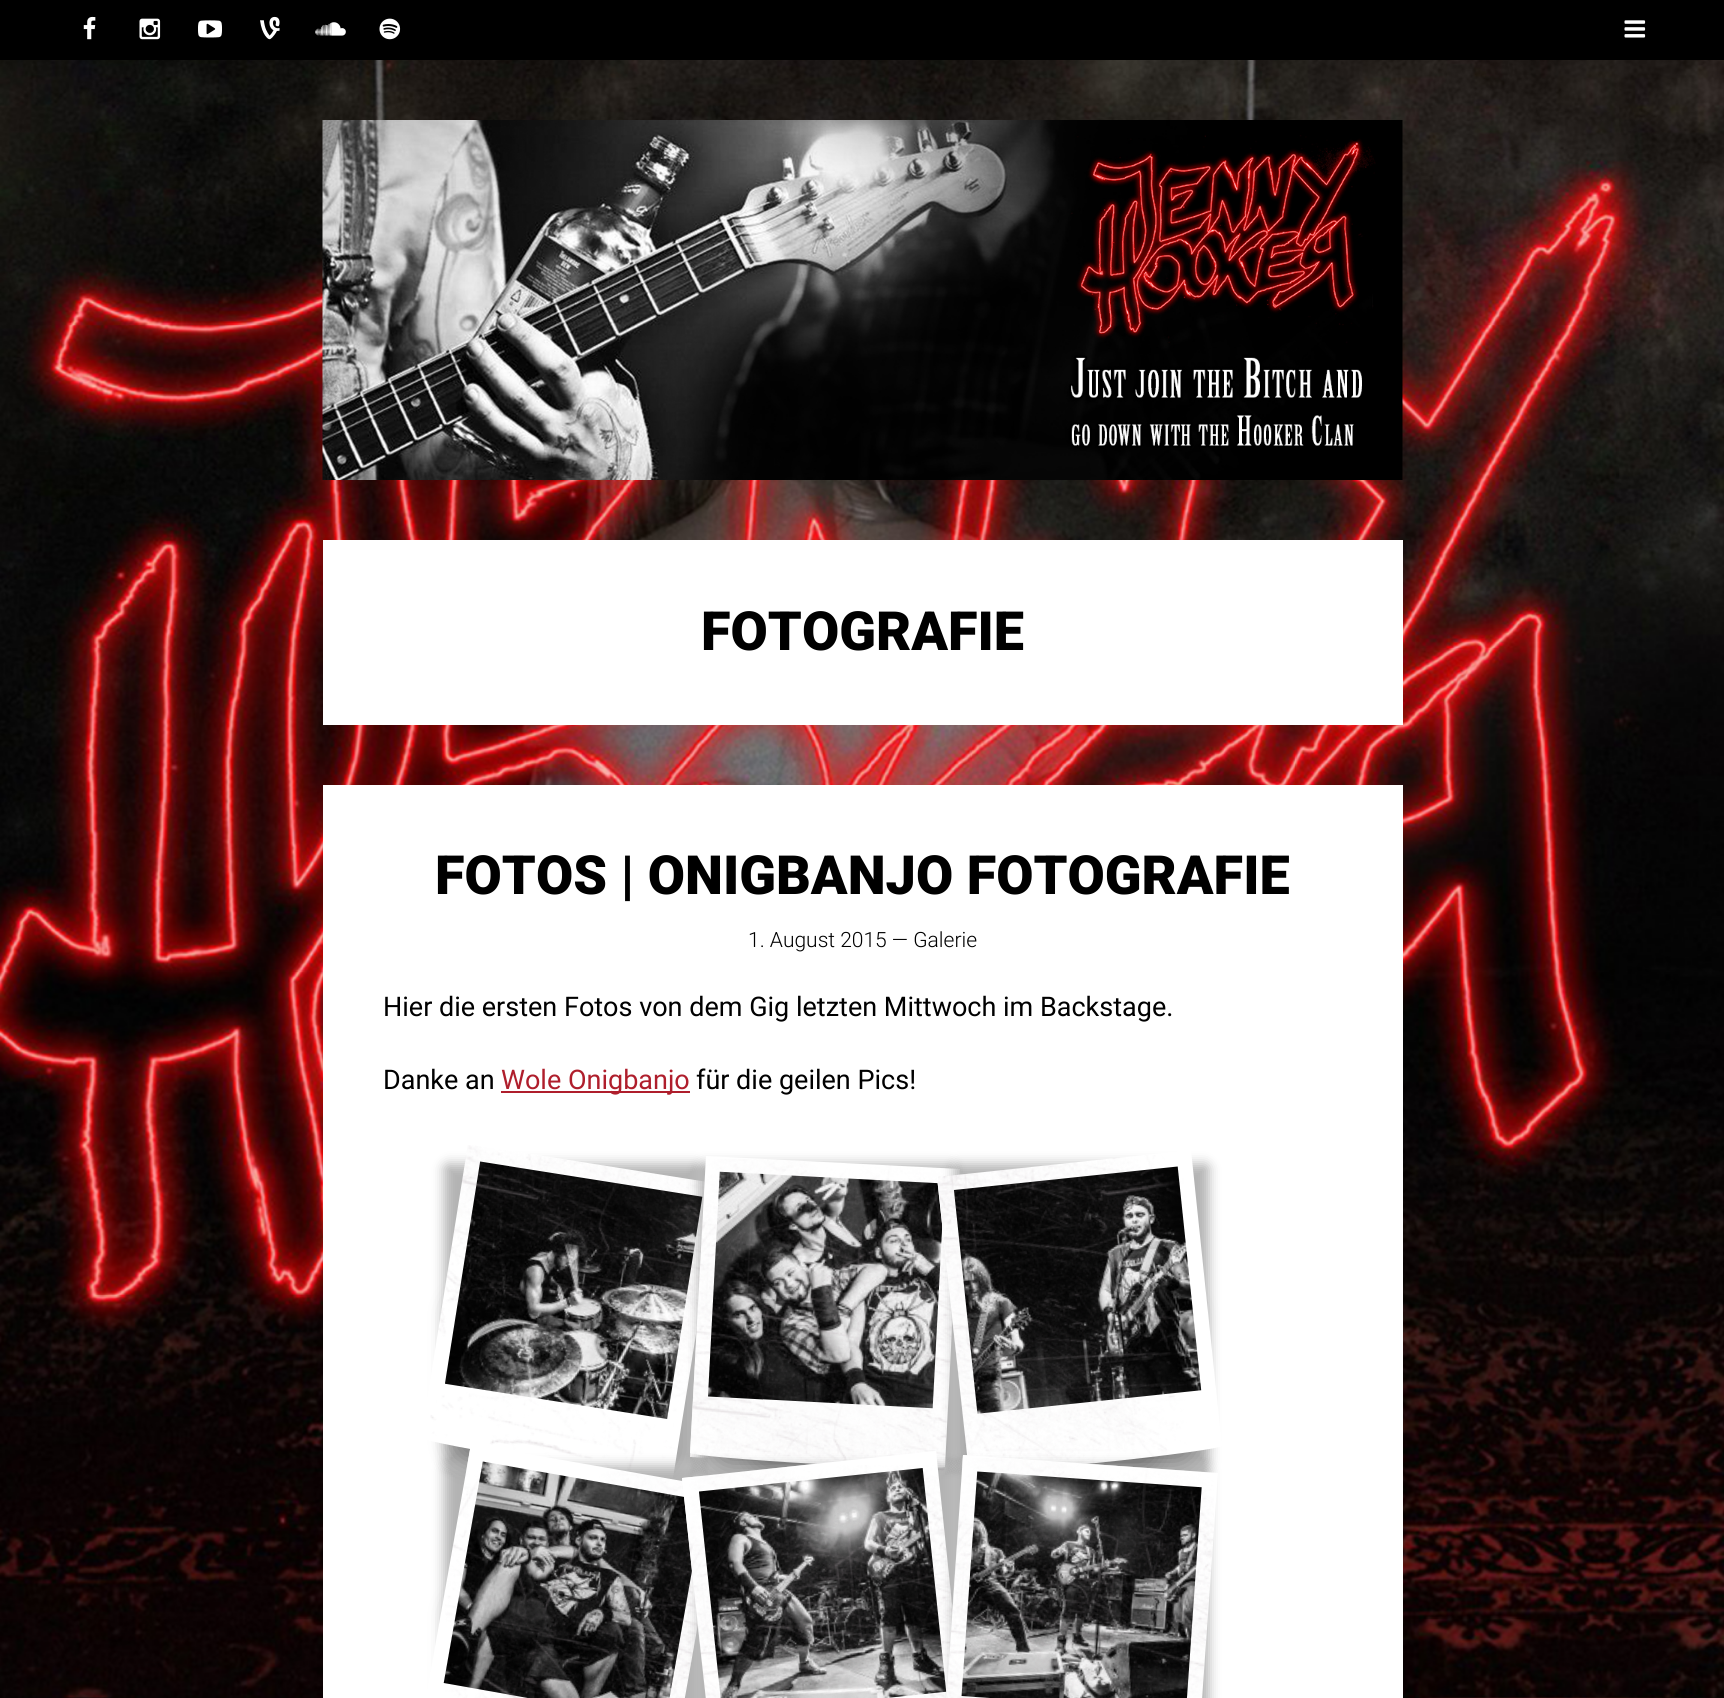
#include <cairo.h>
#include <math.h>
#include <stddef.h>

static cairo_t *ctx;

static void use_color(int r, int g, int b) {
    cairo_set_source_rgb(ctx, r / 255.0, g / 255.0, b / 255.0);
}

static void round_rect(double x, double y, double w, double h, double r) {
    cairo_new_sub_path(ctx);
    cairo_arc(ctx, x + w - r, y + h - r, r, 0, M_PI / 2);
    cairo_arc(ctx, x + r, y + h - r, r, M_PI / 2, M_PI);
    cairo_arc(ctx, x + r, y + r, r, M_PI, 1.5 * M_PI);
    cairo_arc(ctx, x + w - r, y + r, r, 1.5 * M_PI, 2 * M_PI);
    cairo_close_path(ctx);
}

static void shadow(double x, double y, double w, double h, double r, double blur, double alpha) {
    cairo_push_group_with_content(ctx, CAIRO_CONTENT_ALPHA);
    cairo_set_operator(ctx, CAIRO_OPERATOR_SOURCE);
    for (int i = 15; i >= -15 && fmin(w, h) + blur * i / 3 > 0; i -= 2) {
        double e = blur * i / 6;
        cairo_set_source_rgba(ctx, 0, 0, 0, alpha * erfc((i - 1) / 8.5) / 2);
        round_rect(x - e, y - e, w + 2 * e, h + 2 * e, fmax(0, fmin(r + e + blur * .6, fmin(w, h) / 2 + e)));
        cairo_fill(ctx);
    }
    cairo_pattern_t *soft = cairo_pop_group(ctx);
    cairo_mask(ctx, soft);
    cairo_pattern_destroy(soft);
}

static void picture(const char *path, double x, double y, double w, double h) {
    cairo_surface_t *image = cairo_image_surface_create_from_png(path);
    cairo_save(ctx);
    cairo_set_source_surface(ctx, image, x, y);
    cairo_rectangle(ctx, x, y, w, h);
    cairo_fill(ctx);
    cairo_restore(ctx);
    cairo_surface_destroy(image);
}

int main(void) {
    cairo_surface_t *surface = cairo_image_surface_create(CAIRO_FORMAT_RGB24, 1724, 1698);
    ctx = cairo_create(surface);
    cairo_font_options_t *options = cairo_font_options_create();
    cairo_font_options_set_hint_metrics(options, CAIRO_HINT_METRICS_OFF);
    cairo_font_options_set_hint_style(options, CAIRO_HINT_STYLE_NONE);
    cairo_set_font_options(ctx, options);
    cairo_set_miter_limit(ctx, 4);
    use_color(255, 255, 255);
    cairo_paint(ctx);
    picture("img1.png", 0, 1697, 1724, 1);
    picture("img2.png", 0, 60, 1724, 1638);
    use_color(0, 0, 0);
    cairo_rectangle(ctx, 0, 0, 1724, 60);
    cairo_fill(ctx);
    picture("img3.png", 83, 16, 13, 24);
    picture("img4.png", 139, 18, 22, 22);
    picture("img5.png", 198, 20, 24, 18);
    picture("img6.png", 260, 16, 20, 24);
    picture("img7.png", 315, 22, 31, 14);
    picture("img8.png", 379, 18, 22, 22);
    picture("img9.png", 1624, 20, 22, 18);
    picture("img10.png", 322, 120, 1081, 360);
    use_color(255, 255, 255);
    cairo_rectangle(ctx, 323, 540, 1080, 185);
    cairo_fill(ctx);
    cairo_select_font_face(ctx, "Roboto Black", CAIRO_FONT_SLANT_NORMAL, CAIRO_FONT_WEIGHT_NORMAL);
    cairo_set_font_size(ctx, 54);
    use_color(0, 0, 0);
    cairo_move_to(ctx, 701, 650);
    cairo_show_text(ctx, "FOTOGRAFIE");
    use_color(255, 255, 255);
    cairo_rectangle(ctx, 323, 785, 1080, 913);
    cairo_fill(ctx);
    use_color(0, 0, 0);
    cairo_move_to(ctx, 435, 894);
    cairo_show_text(ctx, "FOTOS | ONIGBANJO FOTOGRAFIE");
    cairo_select_font_face(ctx, "Roboto Light", CAIRO_FONT_SLANT_NORMAL, CAIRO_FONT_WEIGHT_NORMAL);
    cairo_set_font_size(ctx, 21);
    cairo_move_to(ctx, 748, 947);
    cairo_show_text(ctx, "1. August 2015 — Galerie");
    cairo_select_font_face(ctx, "Roboto", CAIRO_FONT_SLANT_NORMAL, CAIRO_FONT_WEIGHT_NORMAL);
    cairo_set_font_size(ctx, 27);
    cairo_move_to(ctx, 383, 1016);
    cairo_show_text(ctx, "Hier die ersten Fotos von dem Gig letzten Mittwoch im Backstage.");
    cairo_move_to(ctx, 383, 1089);
    cairo_show_text(ctx, "Danke an");
    use_color(175, 30, 44);
    cairo_rectangle(ctx, 501, 1091, 189, 2);
    cairo_fill(ctx);
    cairo_move_to(ctx, 501, 1089);
    cairo_show_text(ctx, "Wole Onigbanjo");
    use_color(0, 0, 0);
    cairo_move_to(ctx, 696, 1089);
    cairo_show_text(ctx, "für die geilen Pics!");
    use_color(0, 0, 0);
    shadow(444, 1164, 255, 302, 4, 6, 0.3);
    shadow(453, 1295, 179, 166, 15, 12, 0.3);
    shadow(491, 1301, 178, 165, 15, 12, 0.3);
    use_color(255, 255, 255);
    cairo_new_path(ctx);
    cairo_move_to(ctx, 468, 1144);
    cairo_line_to(ctx, 720, 1184);
    cairo_line_to(ctx, 673, 1478);
    cairo_curve_to(ctx, 673, 1480, 616, 1473, 546, 1462);
    cairo_curve_to(ctx, 477, 1451, 421, 1440, 421, 1438);
    cairo_close_path(ctx);
    cairo_fill(ctx);
    picture("img11.png", 445, 1161, 258, 258);
    picture("img12.png", 430, 1145, 275, 327);
    cairo_new_path(ctx);
    cairo_move_to(ctx, 706, 1156);
    cairo_line_to(ctx, 960, 1169);
    cairo_line_to(ctx, 944, 1470);
    cairo_line_to(ctx, 690, 1457);
    cairo_close_path(ctx);
    cairo_fill(ctx);
    use_color(0, 0, 0);
    shadow(699, 1164, 255, 302, 4, 6, 0.3);
    shadow(714, 1298, 179, 165, 15, 12, 0.3);
    shadow(752, 1299, 178, 167, 15, 12, 0.3);
    use_color(255, 255, 255);
    cairo_new_path(ctx);
    cairo_move_to(ctx, 706, 1156);
    cairo_line_to(ctx, 960, 1169);
    cairo_line_to(ctx, 945, 1467);
    cairo_curve_to(ctx, 945, 1469, 887, 1467, 817, 1464);
    cairo_curve_to(ctx, 747, 1460, 690, 1455, 690, 1453);
    cairo_close_path(ctx);
    cairo_fill(ctx);
    picture("img13.png", 708, 1171, 235, 238);
    picture("img14.png", 690, 1159, 263, 312);
    cairo_new_path(ctx);
    cairo_move_to(ctx, 937, 1177);
    cairo_line_to(ctx, 1191, 1150);
    cairo_line_to(ctx, 1223, 1450);
    cairo_line_to(ctx, 969, 1476);
    cairo_close_path(ctx);
    cairo_fill(ctx);
    use_color(0, 0, 0);
    shadow(954, 1164, 255, 302, 4, 6, 0.3);
    shadow(1016, 1296, 178, 165, 15, 12, 0.3);
    shadow(978, 1301, 179, 165, 15, 12, 0.3);
    use_color(255, 255, 255);
    cairo_new_path(ctx);
    cairo_move_to(ctx, 937, 1177);
    cairo_line_to(ctx, 1191, 1150);
    cairo_line_to(ctx, 1222, 1446);
    cairo_curve_to(ctx, 1222, 1448, 1166, 1456, 1096, 1463);
    cairo_curve_to(ctx, 1026, 1470, 969, 1475, 969, 1473);
    cairo_close_path(ctx);
    cairo_fill(ctx);
    picture("img15.png", 953, 1166, 249, 248);
    picture("img16.png", 938, 1155, 249, 309);
    cairo_new_path(ctx);
    cairo_move_to(ctx, 471, 1444);
    cairo_line_to(ctx, 722, 1488);
    cairo_line_to(ctx, 669, 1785);
    cairo_line_to(ctx, 418, 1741);
    cairo_close_path(ctx);
    cairo_fill(ctx);
    use_color(0, 0, 0);
    shadow(444, 1466, 255, 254, 4, 6, 0.3);
    shadow(453, 1596, 179, 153, 15, 12, 0.3);
    shadow(489, 1602, 179, 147, 15, 12, 0.3);
    use_color(255, 255, 255);
    cairo_new_path(ctx);
    cairo_move_to(ctx, 471, 1444);
    cairo_line_to(ctx, 722, 1488);
    cairo_line_to(ctx, 670, 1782);
    cairo_curve_to(ctx, 670, 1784, 613, 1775, 544, 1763);
    cairo_curve_to(ctx, 474, 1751, 419, 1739, 419, 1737);
    cairo_close_path(ctx);
    cairo_fill(ctx);
    picture("img17.png", 443, 1461, 249, 237);
    picture("img18.png", 445, 1471, 253, 227);
    cairo_new_path(ctx);
    cairo_move_to(ctx, 682, 1478);
    cairo_line_to(ctx, 936, 1451);
    cairo_line_to(ctx, 968, 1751);
    cairo_line_to(ctx, 714, 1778);
    cairo_close_path(ctx);
    cairo_fill(ctx);
    use_color(0, 0, 0);
    shadow(699, 1466, 255, 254, 4, 6, 0.3);
    shadow(761, 1598, 178, 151, 15, 12, 0.3);
    shadow(723, 1602, 179, 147, 15, 12, 0.3);
    use_color(255, 255, 255);
    cairo_new_path(ctx);
    cairo_move_to(ctx, 682, 1478);
    cairo_line_to(ctx, 936, 1451);
    cairo_line_to(ctx, 967, 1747);
    cairo_curve_to(ctx, 967, 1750, 911, 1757, 841, 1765);
    cairo_curve_to(ctx, 771, 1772, 714, 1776, 714, 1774);
    cairo_close_path(ctx);
    cairo_fill(ctx);
    picture("img19.png", 699, 1468, 248, 230);
    picture("img20.png", 689, 1465, 264, 233);
    cairo_new_path(ctx);
    cairo_move_to(ctx, 963, 1455);
    cairo_line_to(ctx, 1218, 1473);
    cairo_line_to(ctx, 1197, 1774);
    cairo_line_to(ctx, 942, 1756);
    cairo_close_path(ctx);
    cairo_fill(ctx);
    use_color(0, 0, 0);
    shadow(954, 1466, 255, 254, 4, 6, 0.3);
    shadow(968, 1598, 178, 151, 15, 12, 0.3);
    use_color(255, 255, 255);
    cairo_new_path(ctx);
    cairo_move_to(ctx, 963, 1455);
    cairo_line_to(ctx, 1218, 1473);
    cairo_line_to(ctx, 1197, 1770);
    cairo_curve_to(ctx, 1197, 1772, 1140, 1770, 1069, 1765);
    cairo_curve_to(ctx, 999, 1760, 942, 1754, 943, 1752);
    cairo_close_path(ctx);
    cairo_fill(ctx);
    picture("img21.png", 961, 1471, 241, 227);
    picture("img22.png", 947, 1458, 267, 240);
    cairo_surface_write_to_png(surface, "result.png");
    cairo_font_options_destroy(options);
    cairo_destroy(ctx);
    cairo_surface_destroy(surface);
    return 0;
}
